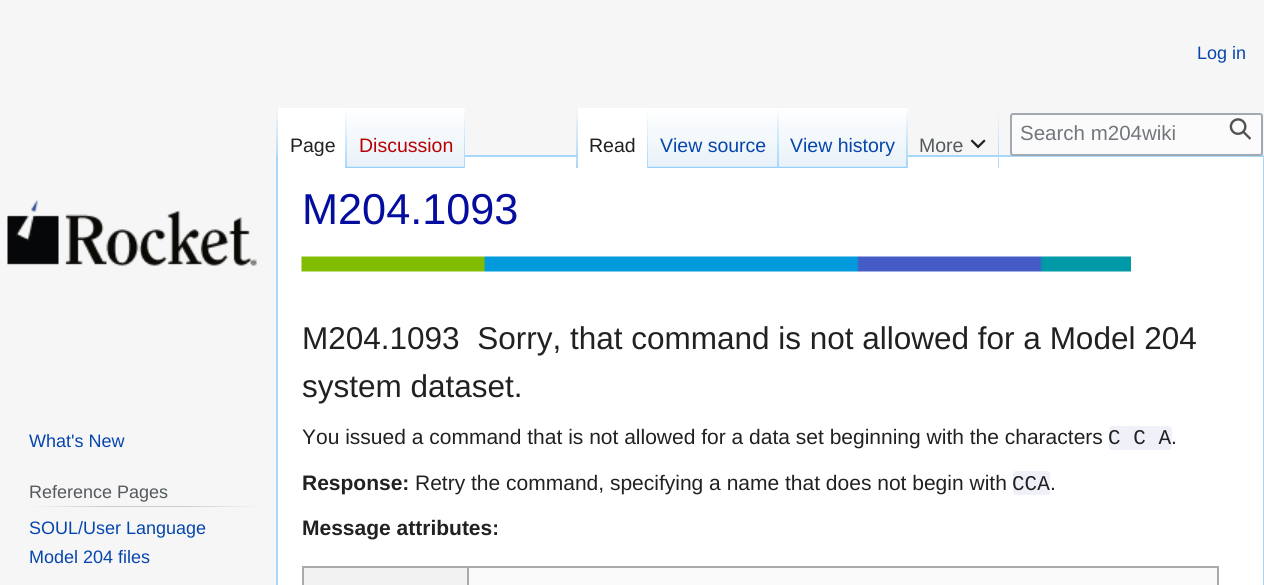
#include <cairo.h>
#include <math.h>
#include <stddef.h>

static cairo_t *ctx;

static void use_color(int r, int g, int b) {
    cairo_set_source_rgb(ctx, r / 255.0, g / 255.0, b / 255.0);
}

static void round_rect(double x, double y, double w, double h, double r) {
    cairo_new_sub_path(ctx);
    cairo_arc(ctx, x + w - r, y + h - r, r, 0, M_PI / 2);
    cairo_arc(ctx, x + r, y + h - r, r, M_PI / 2, M_PI);
    cairo_arc(ctx, x + r, y + r, r, M_PI, 1.5 * M_PI);
    cairo_arc(ctx, x + w - r, y + r, r, 1.5 * M_PI, 2 * M_PI);
    cairo_close_path(ctx);
}

static void picture(const char *path, double x, double y, double w, double h) {
    cairo_surface_t *image = cairo_image_surface_create_from_png(path);
    cairo_save(ctx);
    cairo_set_source_surface(ctx, image, x, y);
    cairo_rectangle(ctx, x, y, w, h);
    cairo_fill(ctx);
    cairo_restore(ctx);
    cairo_surface_destroy(image);
}

int main(void) {
    cairo_surface_t *surface = cairo_image_surface_create(CAIRO_FORMAT_RGB24, 1264, 585);
    ctx = cairo_create(surface);
    cairo_font_options_t *options = cairo_font_options_create();
    cairo_font_options_set_hint_metrics(options, CAIRO_HINT_METRICS_OFF);
    cairo_font_options_set_hint_style(options, CAIRO_HINT_STYLE_NONE);
    cairo_set_font_options(ctx, options);
    cairo_set_miter_limit(ctx, 4);
    cairo_pattern_t *gradient;
    use_color(246, 246, 246);
    cairo_paint(ctx);
    cairo_select_font_face(ctx, "Liberation Sans", CAIRO_FONT_SLANT_NORMAL, CAIRO_FONT_WEIGHT_NORMAL);
    cairo_set_font_size(ctx, 18);
    use_color(6, 69, 173);
    cairo_move_to(ctx, 1197, 59);
    cairo_show_text(ctx, "Log in");
    gradient = cairo_pattern_create_linear(277, 108, 277, 168);
    cairo_pattern_add_color_stop_rgba(gradient, 0, 0.655, 0.843, 0.976, 0);
    cairo_pattern_add_color_stop_rgba(gradient, 1, 0.655, 0.843, 0.976, 1);
    cairo_set_source(ctx, gradient);
    cairo_pattern_destroy(gradient);
    cairo_rectangle(ctx, 276, 108, 2, 47);
    cairo_fill(ctx);
    use_color(255, 255, 255);
    cairo_rectangle(ctx, 277, 156, 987, 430);
    cairo_fill_preserve(ctx);
    use_color(167, 215, 249);
    cairo_stroke(ctx);
    use_color(255, 255, 255);
    cairo_rectangle(ctx, 278, 108, 67, 49);
    cairo_fill(ctx);
    gradient = cairo_pattern_create_linear(346, 108, 346, 168);
    cairo_pattern_add_color_stop_rgba(gradient, 0, 1, 1, 1, 1);
    cairo_pattern_add_color_stop_rgba(gradient, 1, 0.655, 0.843, 0.976, 1);
    cairo_set_source(ctx, gradient);
    cairo_pattern_destroy(gradient);
    cairo_rectangle(ctx, 345, 108, 2, 60);
    cairo_fill(ctx);
    cairo_set_font_size(ctx, 19.5);
    use_color(32, 33, 34);
    cairo_move_to(ctx, 290, 152);
    cairo_show_text(ctx, "Page");
    gradient = cairo_pattern_create_linear(406, 168, 406, 108);
    cairo_pattern_add_color_stop_rgba(gradient, 0, 0.467, 0.757, 0.965, 1);
    cairo_pattern_add_color_stop_rgba(gradient, 0.03, 0.91, 0.949, 0.973, 1);
    cairo_pattern_add_color_stop_rgba(gradient, 1, 1, 1, 1, 1);
    cairo_set_source(ctx, gradient);
    cairo_pattern_destroy(gradient);
    cairo_rectangle(ctx, 347, 108, 118, 60);
    cairo_fill(ctx);
    gradient = cairo_pattern_create_linear(464, 108, 464, 168);
    cairo_pattern_add_color_stop_rgba(gradient, 0, 0.655, 0.843, 0.976, 0);
    cairo_pattern_add_color_stop_rgba(gradient, 1, 0.655, 0.843, 0.976, 1);
    cairo_set_source(ctx, gradient);
    cairo_pattern_destroy(gradient);
    cairo_rectangle(ctx, 464, 108, 1, 60);
    cairo_fill(ctx);
    use_color(186, 0, 0);
    cairo_move_to(ctx, 359, 152);
    cairo_show_text(ctx, "Discussion");
    cairo_set_source_rgba(ctx, 1, 1, 1, 0.5);
    round_rect(1011, 114, 251, 41, 2);
    cairo_fill_preserve(ctx);
    use_color(162, 169, 177);
    cairo_stroke(ctx);
    cairo_set_font_size(ctx, 20.5);
    use_color(114, 119, 125);
    cairo_move_to(ctx, 1020, 140);
    cairo_show_text(ctx, "Search m204wiki");
    picture("img1.png", 1229, 118, 23, 22);
    gradient = cairo_pattern_create_linear(577, 108, 577, 168);
    cairo_pattern_add_color_stop_rgba(gradient, 0, 0.655, 0.843, 0.976, 0);
    cairo_pattern_add_color_stop_rgba(gradient, 1, 0.655, 0.843, 0.976, 1);
    cairo_set_source(ctx, gradient);
    cairo_pattern_destroy(gradient);
    cairo_rectangle(ctx, 576, 108, 2, 60);
    cairo_fill(ctx);
    use_color(255, 255, 255);
    cairo_rectangle(ctx, 578, 108, 69, 49);
    cairo_fill(ctx);
    gradient = cairo_pattern_create_linear(647, 108, 647, 168);
    cairo_pattern_add_color_stop_rgba(gradient, 0, 1, 1, 1, 1);
    cairo_pattern_add_color_stop_rgba(gradient, 1, 0.655, 0.843, 0.976, 1);
    cairo_set_source(ctx, gradient);
    cairo_pattern_destroy(gradient);
    cairo_rectangle(ctx, 647, 108, 1, 60);
    cairo_fill(ctx);
    cairo_set_font_size(ctx, 19.5);
    use_color(32, 33, 34);
    cairo_move_to(ctx, 589, 152);
    cairo_show_text(ctx, "Read");
    gradient = cairo_pattern_create_linear(713, 168, 713, 108);
    cairo_pattern_add_color_stop_rgba(gradient, 0, 0.467, 0.757, 0.965, 1);
    cairo_pattern_add_color_stop_rgba(gradient, 0.03, 0.91, 0.949, 0.973, 1);
    cairo_pattern_add_color_stop_rgba(gradient, 1, 1, 1, 1, 1);
    cairo_set_source(ctx, gradient);
    cairo_pattern_destroy(gradient);
    cairo_rectangle(ctx, 648, 108, 131, 60);
    cairo_fill(ctx);
    gradient = cairo_pattern_create_linear(778, 108, 778, 168);
    cairo_pattern_add_color_stop_rgba(gradient, 0, 0.655, 0.843, 0.976, 0);
    cairo_pattern_add_color_stop_rgba(gradient, 1, 0.655, 0.843, 0.976, 1);
    cairo_set_source(ctx, gradient);
    cairo_pattern_destroy(gradient);
    cairo_rectangle(ctx, 777, 108, 2, 60);
    cairo_fill(ctx);
    use_color(6, 69, 173);
    cairo_move_to(ctx, 660, 152);
    cairo_show_text(ctx, "View source");
    gradient = cairo_pattern_create_linear(843, 168, 843, 108);
    cairo_pattern_add_color_stop_rgba(gradient, 0, 0.467, 0.757, 0.965, 1);
    cairo_pattern_add_color_stop_rgba(gradient, 0.03, 0.91, 0.949, 0.973, 1);
    cairo_pattern_add_color_stop_rgba(gradient, 1, 1, 1, 1, 1);
    cairo_set_source(ctx, gradient);
    cairo_pattern_destroy(gradient);
    cairo_rectangle(ctx, 779, 108, 129, 60);
    cairo_fill(ctx);
    gradient = cairo_pattern_create_linear(907, 108, 907, 168);
    cairo_pattern_add_color_stop_rgba(gradient, 0, 0.655, 0.843, 0.976, 0);
    cairo_pattern_add_color_stop_rgba(gradient, 1, 0.655, 0.843, 0.976, 1);
    cairo_set_source(ctx, gradient);
    cairo_pattern_destroy(gradient);
    cairo_rectangle(ctx, 906, 108, 2, 60);
    cairo_fill(ctx);
    use_color(6, 69, 173);
    cairo_move_to(ctx, 790, 152);
    cairo_show_text(ctx, "View history");
    gradient = cairo_pattern_create_linear(998, 108, 998, 168);
    cairo_pattern_add_color_stop_rgba(gradient, 0, 0.655, 0.843, 0.976, 0);
    cairo_pattern_add_color_stop_rgba(gradient, 1, 0.655, 0.843, 0.976, 1);
    cairo_set_source(ctx, gradient);
    cairo_pattern_destroy(gradient);
    cairo_rectangle(ctx, 998, 108, 1, 60);
    cairo_fill(ctx);
    use_color(84, 89, 93);
    cairo_move_to(ctx, 919, 152);
    cairo_show_text(ctx, "More");
    picture("img2.png", 970, 139, 16, 10);
    picture("img3.png", 7, 199, 250, 67);
    cairo_set_font_size(ctx, 18);
    use_color(6, 69, 173);
    cairo_move_to(ctx, 29, 447);
    cairo_show_text(ctx, "What's New");
    gradient = cairo_pattern_create_linear(29, 506, 261, 506);
    cairo_pattern_add_color_stop_rgba(gradient, 0, 0.965, 0.965, 0.965, 1);
    cairo_pattern_add_color_stop_rgba(gradient, 0.33, 0.784, 0.8, 0.82, 1);
    cairo_pattern_add_color_stop_rgba(gradient, 0.66, 0.784, 0.8, 0.82, 1);
    cairo_pattern_add_color_stop_rgba(gradient, 1, 0.965, 0.965, 0.965, 1);
    cairo_set_source(ctx, gradient);
    cairo_pattern_destroy(gradient);
    cairo_rectangle(ctx, 29, 506, 232, 1);
    cairo_fill(ctx);
    use_color(84, 89, 93);
    cairo_move_to(ctx, 29, 498);
    cairo_show_text(ctx, "Reference Pages");
    use_color(6, 69, 173);
    cairo_move_to(ctx, 29, 534);
    cairo_show_text(ctx, "SOUL/User Language");
    cairo_move_to(ctx, 29, 563);
    cairo_show_text(ctx, "Model 204 files");
    picture("img4.png", 301, 256, 830, 16);
    cairo_set_font_size(ctx, 43.25);
    use_color(5, 13, 158);
    cairo_move_to(ctx, 302, 224);
    cairo_show_text(ctx, "M204.1093");
    cairo_set_font_size(ctx, 31.5);
    use_color(32, 33, 34);
    cairo_move_to(ctx, 302, 349);
    cairo_show_text(ctx, "M204.1093  Sorry, that command is not allowed for a Model 204");
    cairo_move_to(ctx, 302, 397);
    cairo_show_text(ctx, "system dataset.");
    cairo_set_font_size(ctx, 21);
    cairo_move_to(ctx, 302, 444);
    cairo_show_text(ctx, "You issued a command that is not allowed for a data set beginning with the characters");
    use_color(240, 240, 249);
    round_rect(1109, 426, 63, 24, 3);
    cairo_fill(ctx);
    cairo_select_font_face(ctx, "Liberation Mono", CAIRO_FONT_SLANT_NORMAL, CAIRO_FONT_WEIGHT_NORMAL);
    use_color(32, 33, 34);
    cairo_move_to(ctx, 1108, 444);
    cairo_show_text(ctx, "C C A");
    cairo_select_font_face(ctx, "Liberation Sans", CAIRO_FONT_SLANT_NORMAL, CAIRO_FONT_WEIGHT_NORMAL);
    cairo_move_to(ctx, 1171, 444);
    cairo_show_text(ctx, ".");
    cairo_select_font_face(ctx, "Liberation Sans", CAIRO_FONT_SLANT_NORMAL, CAIRO_FONT_WEIGHT_BOLD);
    cairo_move_to(ctx, 302, 490);
    cairo_show_text(ctx, "Response:");
    cairo_select_font_face(ctx, "Liberation Sans", CAIRO_FONT_SLANT_NORMAL, CAIRO_FONT_WEIGHT_NORMAL);
    cairo_move_to(ctx, 415, 490);
    cairo_show_text(ctx, "Retry the command, specifying a name that does not begin with");
    use_color(240, 240, 249);
    round_rect(1013, 471, 37, 24, 3);
    cairo_fill(ctx);
    cairo_select_font_face(ctx, "Liberation Mono", CAIRO_FONT_SLANT_NORMAL, CAIRO_FONT_WEIGHT_NORMAL);
    use_color(32, 33, 34);
    cairo_move_to(ctx, 1012, 490);
    cairo_show_text(ctx, "CCA");
    cairo_select_font_face(ctx, "Liberation Sans", CAIRO_FONT_SLANT_NORMAL, CAIRO_FONT_WEIGHT_NORMAL);
    cairo_move_to(ctx, 1050, 490);
    cairo_show_text(ctx, ".");
    cairo_select_font_face(ctx, "Liberation Sans", CAIRO_FONT_SLANT_NORMAL, CAIRO_FONT_WEIGHT_BOLD);
    cairo_move_to(ctx, 302, 535);
    cairo_show_text(ctx, "Message attributes:");
    use_color(249, 249, 249);
    cairo_rectangle(ctx, 469, 568, 748, 17);
    cairo_fill(ctx);
    use_color(170, 170, 170);
    cairo_rectangle(ctx, 302, 566, 916, 2);
    cairo_fill(ctx);
    cairo_rectangle(ctx, 1217, 566, 2, 19);
    cairo_fill(ctx);
    cairo_rectangle(ctx, 302, 566, 2, 19);
    cairo_fill(ctx);
    use_color(242, 242, 242);
    cairo_rectangle(ctx, 304, 568, 163, 17);
    cairo_fill(ctx);
    use_color(170, 170, 170);
    cairo_rectangle(ctx, 467, 566, 2, 19);
    cairo_fill(ctx);
    cairo_surface_write_to_png(surface, "result.png");
    cairo_font_options_destroy(options);
    cairo_destroy(ctx);
    cairo_surface_destroy(surface);
    return 0;
}
